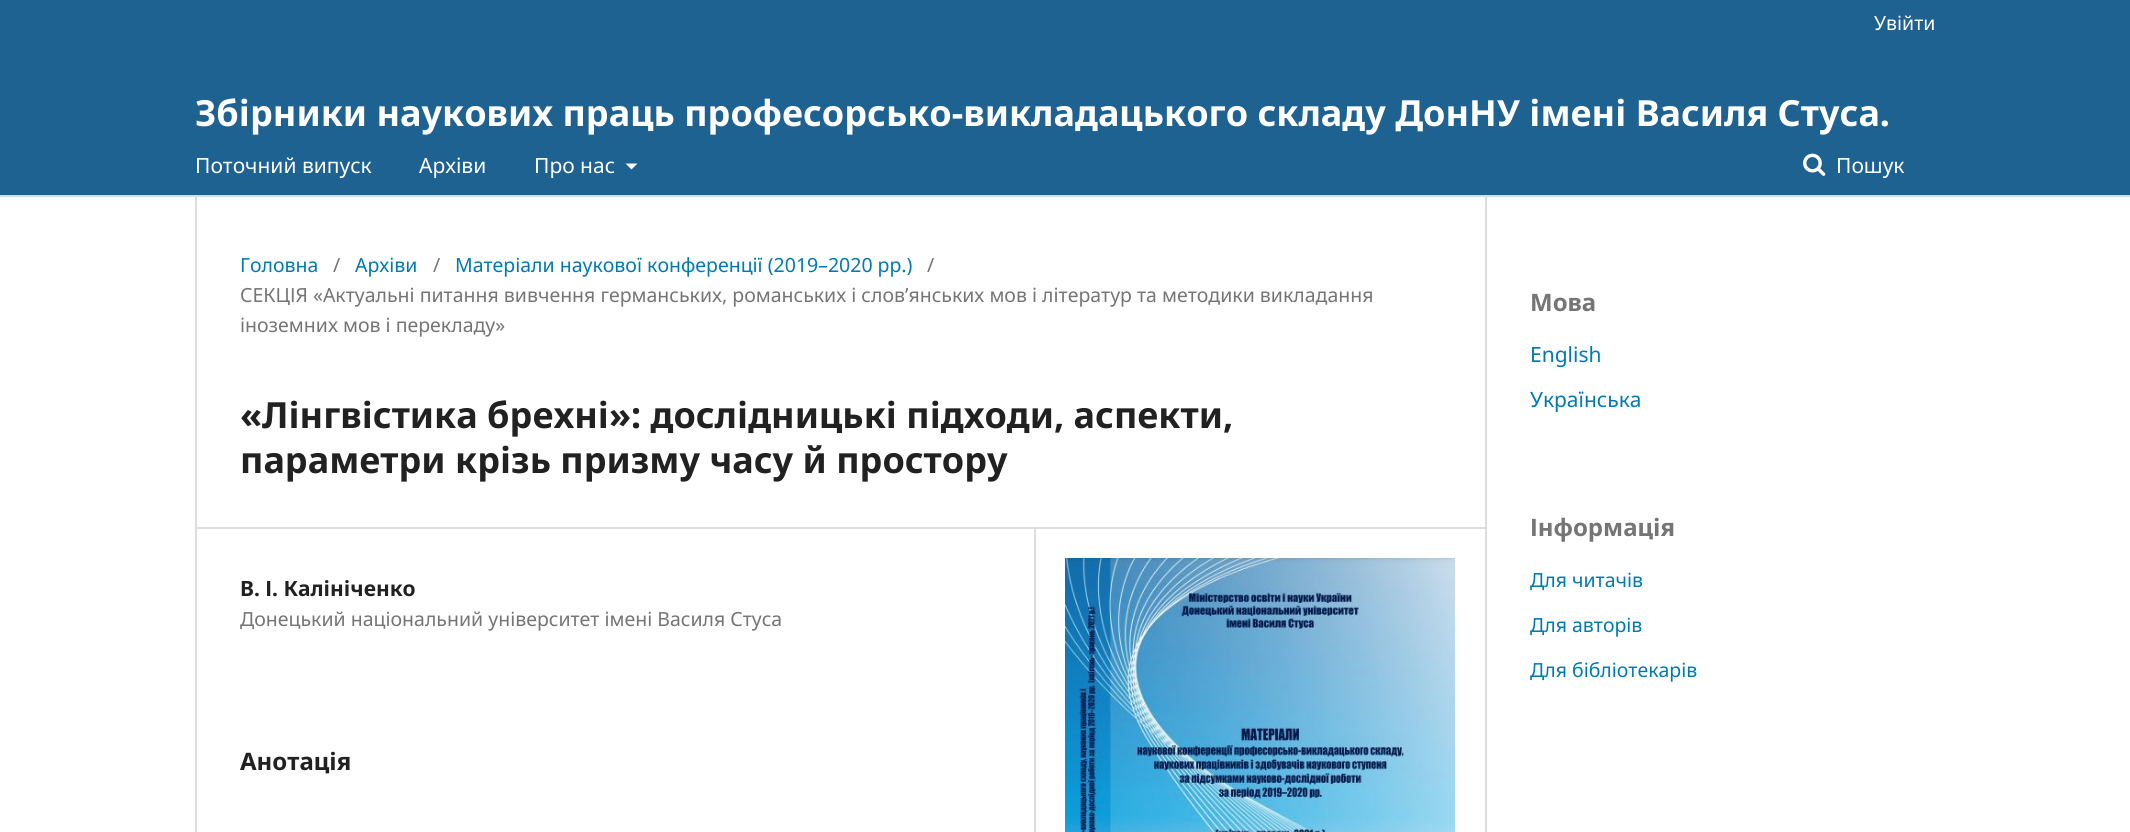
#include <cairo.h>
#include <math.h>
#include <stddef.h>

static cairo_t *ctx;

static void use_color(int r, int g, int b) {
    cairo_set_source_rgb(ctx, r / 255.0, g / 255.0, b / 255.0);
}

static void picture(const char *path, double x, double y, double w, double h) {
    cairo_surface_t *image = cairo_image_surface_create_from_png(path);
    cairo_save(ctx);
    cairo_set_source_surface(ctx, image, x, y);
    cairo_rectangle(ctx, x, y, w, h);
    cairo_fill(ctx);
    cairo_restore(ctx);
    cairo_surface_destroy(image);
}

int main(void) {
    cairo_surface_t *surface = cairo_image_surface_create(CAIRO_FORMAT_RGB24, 2130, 832);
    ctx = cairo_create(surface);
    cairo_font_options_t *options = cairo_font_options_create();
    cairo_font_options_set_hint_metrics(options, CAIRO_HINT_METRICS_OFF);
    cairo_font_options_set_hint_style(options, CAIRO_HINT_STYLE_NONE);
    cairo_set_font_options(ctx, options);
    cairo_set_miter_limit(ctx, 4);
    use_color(255, 255, 255);
    cairo_paint(ctx);
    use_color(30, 98, 146);
    cairo_rectangle(ctx, 0, 0, 2130, 195);
    cairo_fill(ctx);
    use_color(221, 221, 221);
    cairo_rectangle(ctx, 0, 195, 2130, 2);
    cairo_fill(ctx);
    cairo_select_font_face(ctx, "Noto Sans", CAIRO_FONT_SLANT_NORMAL, CAIRO_FONT_WEIGHT_NORMAL);
    cairo_set_font_size(ctx, 19.5);
    use_color(255, 255, 255);
    cairo_move_to(ctx, 1874, 30);
    cairo_show_text(ctx, "Увійти");
    cairo_set_font_size(ctx, 21);
    cairo_move_to(ctx, 195, 173);
    cairo_show_text(ctx, "Поточний випуск");
    cairo_move_to(ctx, 419, 173);
    cairo_show_text(ctx, "Архіви");
    cairo_move_to(ctx, 534, 173);
    cairo_show_text(ctx, "Про нас");
    cairo_new_path(ctx);
    cairo_move_to(ctx, 625.5, 163.5);
    cairo_line_to(ctx, 637.5, 163.5);
    cairo_line_to(ctx, 631.5, 169.5);
    cairo_close_path(ctx);
    cairo_fill(ctx);
    picture("img1.png", 1803, 153, 23, 23);
    cairo_move_to(ctx, 1836, 173);
    cairo_show_text(ctx, "Пошук");
    cairo_select_font_face(ctx, "Noto Sans", CAIRO_FONT_SLANT_NORMAL, CAIRO_FONT_WEIGHT_BOLD);
    cairo_set_font_size(ctx, 36);
    cairo_move_to(ctx, 195, 126);
    cairo_show_text(ctx, "Збірники наукових праць професорсько-викладацького складу ДонНУ імені Василя Стуса.");
    use_color(221, 221, 221);
    cairo_rectangle(ctx, 195, 527, 1290, 2);
    cairo_fill(ctx);
    cairo_rectangle(ctx, 195, 197, 2, 635);
    cairo_fill(ctx);
    cairo_select_font_face(ctx, "Noto Sans", CAIRO_FONT_SLANT_NORMAL, CAIRO_FONT_WEIGHT_NORMAL);
    cairo_set_font_size(ctx, 19.5);
    use_color(0, 122, 178);
    cairo_move_to(ctx, 240, 272);
    cairo_show_text(ctx, "Головна");
    use_color(117, 117, 117);
    cairo_move_to(ctx, 333, 272);
    cairo_show_text(ctx, "/");
    use_color(0, 122, 178);
    cairo_move_to(ctx, 355, 272);
    cairo_show_text(ctx, "Архіви");
    use_color(117, 117, 117);
    cairo_move_to(ctx, 433, 272);
    cairo_show_text(ctx, "/");
    use_color(0, 122, 178);
    cairo_move_to(ctx, 455, 272);
    cairo_show_text(ctx, "Матеріали наукової конференції (2019–2020 рр.)");
    use_color(117, 117, 117);
    cairo_move_to(ctx, 927, 272);
    cairo_show_text(ctx, "/");
    cairo_move_to(ctx, 240, 302);
    cairo_show_text(ctx, "СЕКЦІЯ «Актуальні питання вивчення германських, романських і слов’янських мов і літератур та методики викладання");
    cairo_move_to(ctx, 240, 332);
    cairo_show_text(ctx, "іноземних мов і перекладу»");
    cairo_select_font_face(ctx, "Noto Sans", CAIRO_FONT_SLANT_NORMAL, CAIRO_FONT_WEIGHT_BOLD);
    cairo_set_font_size(ctx, 36);
    use_color(33, 33, 33);
    cairo_move_to(ctx, 240, 428);
    cairo_show_text(ctx, "«Лінгвістика брехні»: дослідницькі підходи, аспекти,");
    cairo_move_to(ctx, 240, 473);
    cairo_show_text(ctx, "параметри крізь призму часу й простору");
    use_color(221, 221, 221);
    cairo_rectangle(ctx, 1034, 528, 2, 304);
    cairo_fill(ctx);
    cairo_set_font_size(ctx, 21);
    use_color(33, 33, 33);
    cairo_move_to(ctx, 240, 596);
    cairo_show_text(ctx, "В. І. Калініченко");
    cairo_select_font_face(ctx, "Noto Sans", CAIRO_FONT_SLANT_NORMAL, CAIRO_FONT_WEIGHT_NORMAL);
    cairo_set_font_size(ctx, 19.5);
    use_color(117, 117, 117);
    cairo_move_to(ctx, 240, 626);
    cairo_show_text(ctx, "Донецький національний університет імені Василя Стуса");
    cairo_select_font_face(ctx, "Noto Sans", CAIRO_FONT_SLANT_NORMAL, CAIRO_FONT_WEIGHT_BOLD);
    cairo_set_font_size(ctx, 24);
    use_color(33, 33, 33);
    cairo_move_to(ctx, 240, 770);
    cairo_show_text(ctx, "Анотація");
    picture("img2.png", 1065, 558, 390, 274);
    use_color(221, 221, 221);
    cairo_rectangle(ctx, 1485, 197, 2, 635);
    cairo_fill(ctx);
    use_color(117, 117, 117);
    cairo_move_to(ctx, 1530, 311);
    cairo_show_text(ctx, "Мова");
    cairo_select_font_face(ctx, "Noto Sans", CAIRO_FONT_SLANT_NORMAL, CAIRO_FONT_WEIGHT_NORMAL);
    cairo_set_font_size(ctx, 21);
    use_color(0, 122, 178);
    cairo_move_to(ctx, 1530, 362);
    cairo_show_text(ctx, "English");
    cairo_move_to(ctx, 1530, 407);
    cairo_show_text(ctx, "Українська");
    cairo_select_font_face(ctx, "Noto Sans", CAIRO_FONT_SLANT_NORMAL, CAIRO_FONT_WEIGHT_BOLD);
    cairo_set_font_size(ctx, 24);
    use_color(117, 117, 117);
    cairo_move_to(ctx, 1530, 536);
    cairo_show_text(ctx, "Інформація");
    cairo_select_font_face(ctx, "Noto Sans", CAIRO_FONT_SLANT_NORMAL, CAIRO_FONT_WEIGHT_NORMAL);
    cairo_set_font_size(ctx, 19.5);
    use_color(0, 122, 178);
    cairo_move_to(ctx, 1530, 587);
    cairo_show_text(ctx, "Для читачів");
    cairo_move_to(ctx, 1530, 632);
    cairo_show_text(ctx, "Для авторів");
    cairo_move_to(ctx, 1530, 677);
    cairo_show_text(ctx, "Для бібліотекарів");
    cairo_surface_write_to_png(surface, "result.png");
    cairo_font_options_destroy(options);
    cairo_destroy(ctx);
    cairo_surface_destroy(surface);
    return 0;
}
